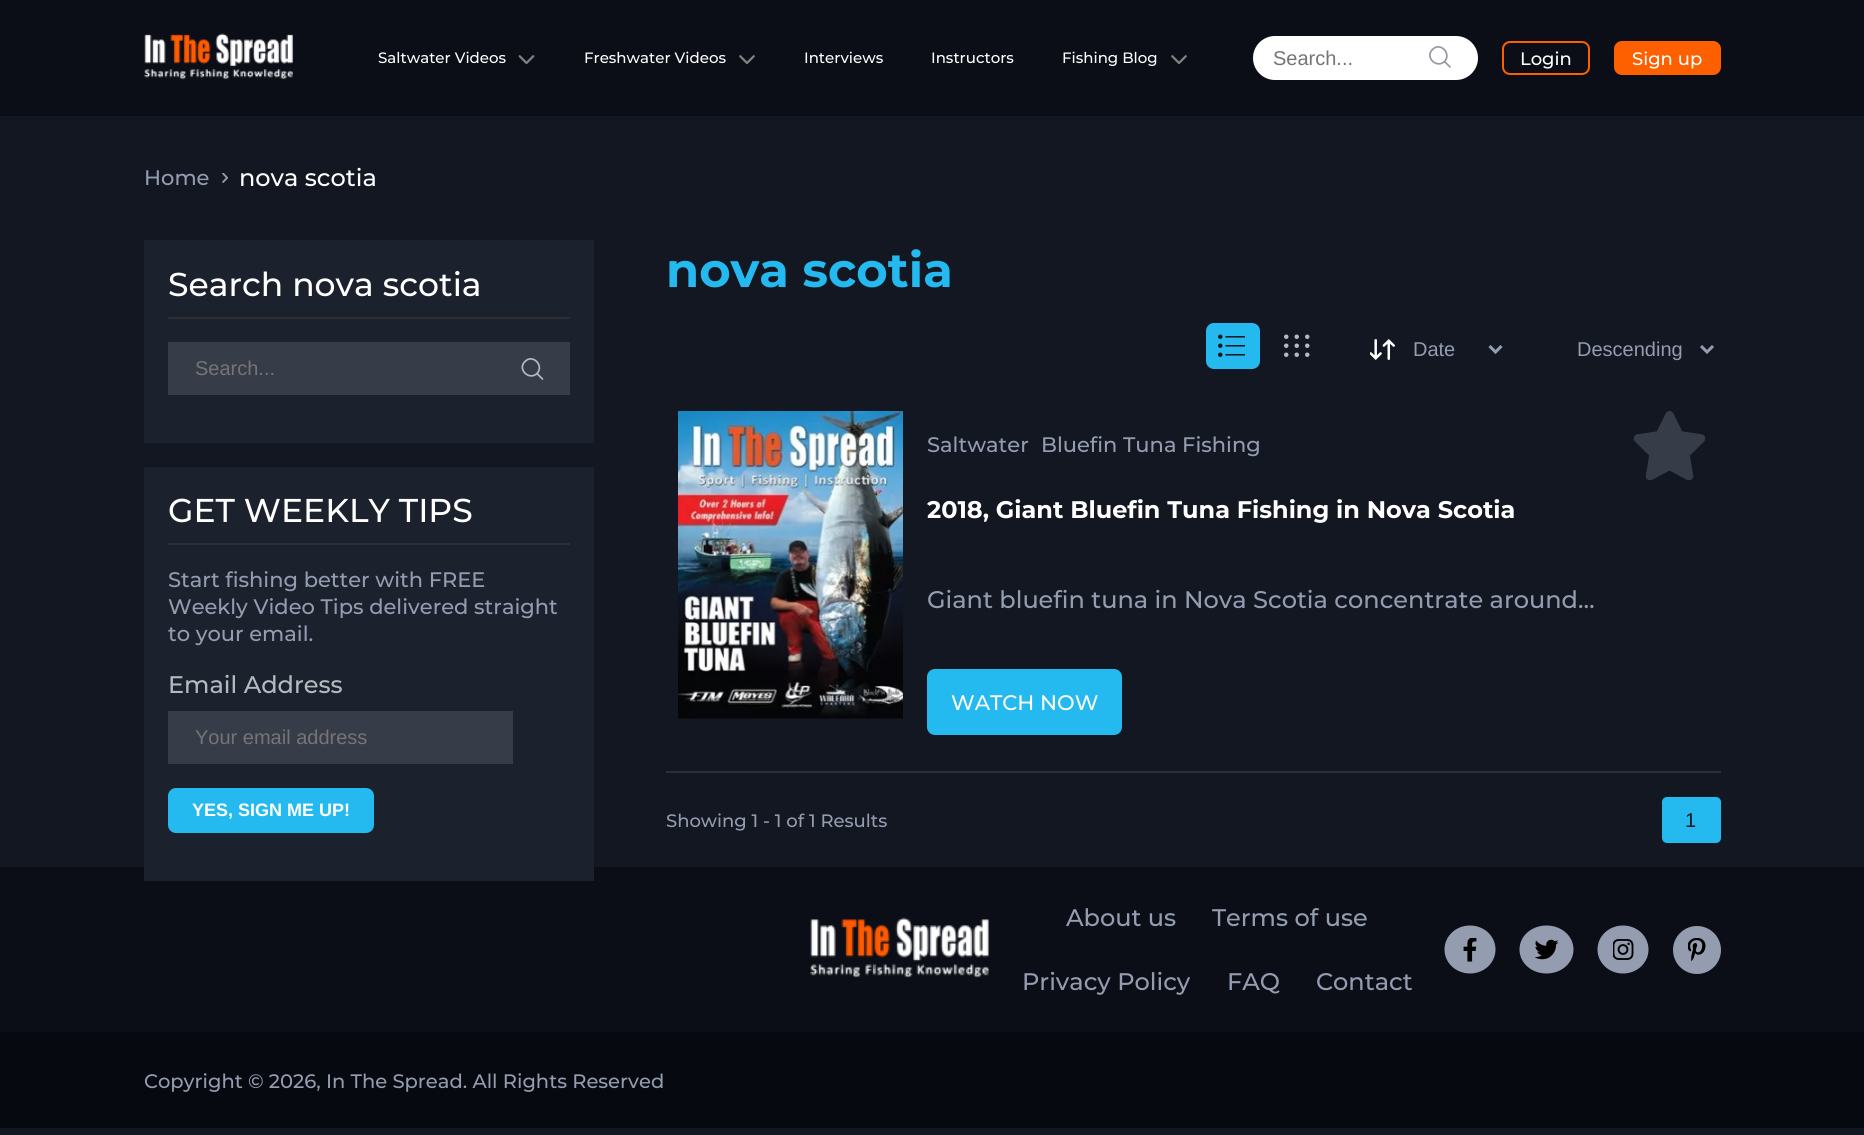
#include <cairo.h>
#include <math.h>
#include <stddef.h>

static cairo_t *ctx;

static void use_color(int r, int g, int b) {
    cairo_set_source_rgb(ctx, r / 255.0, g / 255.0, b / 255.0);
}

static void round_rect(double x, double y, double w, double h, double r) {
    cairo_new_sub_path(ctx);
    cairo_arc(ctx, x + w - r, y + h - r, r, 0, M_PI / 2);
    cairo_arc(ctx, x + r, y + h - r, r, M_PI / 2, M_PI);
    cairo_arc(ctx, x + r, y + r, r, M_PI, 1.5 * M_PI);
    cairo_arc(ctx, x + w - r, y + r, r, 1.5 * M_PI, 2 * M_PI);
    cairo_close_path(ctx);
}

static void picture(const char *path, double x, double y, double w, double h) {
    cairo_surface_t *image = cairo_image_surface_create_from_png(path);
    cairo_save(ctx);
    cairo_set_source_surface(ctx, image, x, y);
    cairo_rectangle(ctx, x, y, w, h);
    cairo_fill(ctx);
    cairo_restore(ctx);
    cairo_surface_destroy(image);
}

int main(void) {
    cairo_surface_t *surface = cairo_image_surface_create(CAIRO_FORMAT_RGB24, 1864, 1135);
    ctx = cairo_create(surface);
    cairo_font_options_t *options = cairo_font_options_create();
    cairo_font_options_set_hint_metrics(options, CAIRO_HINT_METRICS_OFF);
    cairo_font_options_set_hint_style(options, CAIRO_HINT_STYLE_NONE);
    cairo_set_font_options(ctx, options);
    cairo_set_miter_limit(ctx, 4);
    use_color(19, 23, 34);
    cairo_paint(ctx);
    use_color(12, 14, 23);
    cairo_rectangle(ctx, 0, 0, 1864, 116);
    cairo_fill(ctx);
    picture("img1.png", 144, 33, 150, 47);
    cairo_select_font_face(ctx, "Montserrat Medium", CAIRO_FONT_SLANT_NORMAL, CAIRO_FONT_WEIGHT_NORMAL);
    cairo_set_font_size(ctx, 15);
    use_color(255, 255, 255);
    cairo_move_to(ctx, 378, 63);
    cairo_show_text(ctx, "Saltwater Videos");
    picture("img2.png", 518, 55, 17, 10);
    cairo_move_to(ctx, 584, 63);
    cairo_show_text(ctx, "Freshwater Videos");
    picture("img3.png", 739, 55, 16, 10);
    cairo_move_to(ctx, 804, 63);
    cairo_show_text(ctx, "Interviews");
    cairo_move_to(ctx, 931, 63);
    cairo_show_text(ctx, "Instructors");
    cairo_move_to(ctx, 1062, 63);
    cairo_show_text(ctx, "Fishing Blog");
    picture("img3.png", 1171, 55, 16, 10);
    round_rect(1254.5, 37.5, 222, 41, 20.5);
    cairo_fill_preserve(ctx);
    cairo_set_line_width(ctx, 3);
    cairo_stroke(ctx);
    cairo_select_font_face(ctx, "Liberation Sans", CAIRO_FONT_SLANT_NORMAL, CAIRO_FONT_WEIGHT_NORMAL);
    cairo_set_font_size(ctx, 20);
    use_color(117, 117, 117);
    cairo_move_to(ctx, 1273, 65);
    cairo_show_text(ctx, "Search...");
    cairo_new_path(ctx);
    cairo_move_to(ctx, 1450, 67);
    cairo_line_to(ctx, 1444.5, 61.5);
    cairo_move_to(ctx, 1444.5, 61.5);
    cairo_curve_to(ctx, 1452, 53.5, 1440, 41.5, 1432.5, 49.5);
    cairo_curve_to(ctx, 1424.5, 57, 1436.5, 69, 1444.5, 61.5);
    cairo_close_path(ctx);
    use_color(151, 151, 159);
    cairo_set_line_width(ctx, 1.7);
    cairo_set_line_cap(ctx, CAIRO_LINE_CAP_ROUND);
    cairo_set_line_join(ctx, CAIRO_LINE_JOIN_ROUND);
    cairo_stroke(ctx);
    round_rect(1503, 42, 86, 32, 7);
    use_color(254, 96, 0);
    cairo_set_line_width(ctx, 2);
    cairo_set_line_cap(ctx, CAIRO_LINE_CAP_BUTT);
    cairo_set_line_join(ctx, CAIRO_LINE_JOIN_MITER);
    cairo_stroke(ctx);
    cairo_select_font_face(ctx, "Montserrat Medium", CAIRO_FONT_SLANT_NORMAL, CAIRO_FONT_WEIGHT_NORMAL);
    cairo_set_font_size(ctx, 18);
    use_color(255, 255, 255);
    cairo_move_to(ctx, 1520, 65);
    cairo_show_text(ctx, "Login");
    use_color(254, 96, 0);
    round_rect(1615, 42, 105, 32, 7);
    cairo_fill_preserve(ctx);
    cairo_stroke(ctx);
    use_color(255, 255, 255);
    cairo_move_to(ctx, 1632, 65);
    cairo_show_text(ctx, "Sign up");
    cairo_set_font_size(ctx, 21);
    use_color(148, 156, 176);
    cairo_move_to(ctx, 144, 185);
    cairo_show_text(ctx, "Home");
    picture("img4.png", 222, 173, 6, 10);
    cairo_set_font_size(ctx, 24);
    use_color(255, 255, 255);
    cairo_move_to(ctx, 239, 186);
    cairo_show_text(ctx, "nova scotia");
    use_color(28, 33, 46);
    cairo_rectangle(ctx, 144, 240, 450, 203);
    cairo_fill(ctx);
    use_color(47, 47, 51);
    cairo_rectangle(ctx, 168, 317, 402, 2);
    cairo_fill(ctx);
    cairo_set_font_size(ctx, 33);
    use_color(255, 255, 255);
    cairo_move_to(ctx, 168, 296);
    cairo_show_text(ctx, "Search nova scotia");
    use_color(55, 60, 73);
    cairo_rectangle(ctx, 168, 342, 402, 53);
    cairo_fill(ctx);
    cairo_select_font_face(ctx, "Liberation Sans", CAIRO_FONT_SLANT_NORMAL, CAIRO_FONT_WEIGHT_NORMAL);
    cairo_set_font_size(ctx, 20);
    use_color(117, 117, 117);
    cairo_move_to(ctx, 195, 375);
    cairo_show_text(ctx, "Search...");
    cairo_new_path(ctx);
    cairo_move_to(ctx, 542.5, 379);
    cairo_line_to(ctx, 537, 373.5);
    cairo_move_to(ctx, 537, 373.5);
    cairo_curve_to(ctx, 544.5, 365.5, 532.5, 353.5, 525, 361.5);
    cairo_curve_to(ctx, 517, 369, 529, 381, 537, 373.5);
    cairo_close_path(ctx);
    use_color(180, 187, 192);
    cairo_set_line_width(ctx, 1.7);
    cairo_set_line_cap(ctx, CAIRO_LINE_CAP_ROUND);
    cairo_set_line_join(ctx, CAIRO_LINE_JOIN_ROUND);
    cairo_stroke(ctx);
    use_color(12, 14, 23);
    cairo_rectangle(ctx, 0, 867, 1864, 165);
    cairo_fill(ctx);
    use_color(28, 33, 46);
    cairo_rectangle(ctx, 144, 467, 450, 414);
    cairo_fill(ctx);
    use_color(47, 47, 51);
    cairo_rectangle(ctx, 168, 543, 402, 2);
    cairo_fill(ctx);
    cairo_select_font_face(ctx, "Montserrat Medium", CAIRO_FONT_SLANT_NORMAL, CAIRO_FONT_WEIGHT_NORMAL);
    cairo_set_font_size(ctx, 33);
    use_color(255, 255, 255);
    cairo_move_to(ctx, 168, 522);
    cairo_show_text(ctx, "GET WEEKLY TIPS");
    cairo_set_font_size(ctx, 21);
    use_color(148, 156, 176);
    cairo_move_to(ctx, 168, 587);
    cairo_show_text(ctx, "Start fishing better with FREE");
    cairo_move_to(ctx, 168, 614);
    cairo_show_text(ctx, "Weekly Video Tips delivered straight");
    cairo_move_to(ctx, 168, 641);
    cairo_show_text(ctx, "to your email.");
    cairo_set_font_size(ctx, 24);
    use_color(180, 187, 192);
    cairo_move_to(ctx, 168, 693);
    cairo_show_text(ctx, "Email Address");
    use_color(55, 60, 73);
    cairo_rectangle(ctx, 168, 711, 345, 53);
    cairo_fill(ctx);
    cairo_select_font_face(ctx, "Liberation Sans", CAIRO_FONT_SLANT_NORMAL, CAIRO_FONT_WEIGHT_NORMAL);
    cairo_set_font_size(ctx, 20);
    use_color(117, 117, 117);
    cairo_move_to(ctx, 195, 744);
    cairo_show_text(ctx, "Your email address");
    use_color(36, 186, 239);
    round_rect(168, 788, 206, 45, 8);
    cairo_fill(ctx);
    cairo_select_font_face(ctx, "Liberation Sans", CAIRO_FONT_SLANT_NORMAL, CAIRO_FONT_WEIGHT_BOLD);
    cairo_set_font_size(ctx, 18);
    use_color(255, 255, 255);
    cairo_move_to(ctx, 192, 816);
    cairo_show_text(ctx, "YES, SIGN ME UP!");
    cairo_select_font_face(ctx, "Montserrat", CAIRO_FONT_SLANT_NORMAL, CAIRO_FONT_WEIGHT_BOLD);
    cairo_set_font_size(ctx, 48);
    use_color(36, 186, 239);
    cairo_move_to(ctx, 666, 287);
    cairo_show_text(ctx, "nova scotia");
    round_rect(1206, 323, 54, 46, 8);
    cairo_fill(ctx);
    picture("img5.png", 1218, 334, 27, 23);
    picture("img6.png", 1284, 334, 26, 23);
    picture("img7.png", 1370, 339, 25, 21);
    cairo_new_path(ctx);
    cairo_move_to(ctx, 1489.5, 346);
    cairo_line_to(ctx, 1495.5, 352);
    cairo_line_to(ctx, 1501.5, 346);
    use_color(148, 156, 176);
    cairo_set_line_width(ctx, 3);
    cairo_set_line_cap(ctx, CAIRO_LINE_CAP_BUTT);
    cairo_set_line_join(ctx, CAIRO_LINE_JOIN_MITER);
    cairo_stroke(ctx);
    cairo_select_font_face(ctx, "Liberation Sans", CAIRO_FONT_SLANT_NORMAL, CAIRO_FONT_WEIGHT_NORMAL);
    cairo_set_font_size(ctx, 20);
    cairo_move_to(ctx, 1413, 356);
    cairo_show_text(ctx, "Date");
    cairo_new_path(ctx);
    cairo_move_to(ctx, 1701, 346);
    cairo_line_to(ctx, 1707, 352);
    cairo_line_to(ctx, 1713, 346);
    cairo_stroke(ctx);
    cairo_move_to(ctx, 1577, 356);
    cairo_show_text(ctx, "Descending");
    use_color(47, 47, 51);
    cairo_rectangle(ctx, 666, 771, 1055, 2);
    cairo_fill(ctx);
    picture("img8.png", 678, 411, 225, 308);
    cairo_select_font_face(ctx, "Montserrat Medium", CAIRO_FONT_SLANT_NORMAL, CAIRO_FONT_WEIGHT_NORMAL);
    cairo_set_font_size(ctx, 21);
    use_color(148, 156, 176);
    cairo_move_to(ctx, 927, 452);
    cairo_show_text(ctx, "Saltwater");
    cairo_move_to(ctx, 1041, 452);
    cairo_show_text(ctx, "Bluefin Tuna Fishing");
    cairo_select_font_face(ctx, "Montserrat", CAIRO_FONT_SLANT_NORMAL, CAIRO_FONT_WEIGHT_BOLD);
    cairo_set_font_size(ctx, 24);
    use_color(255, 255, 255);
    cairo_move_to(ctx, 927, 518);
    cairo_show_text(ctx, "2018, Giant Bluefin Tuna Fishing in Nova Scotia");
    cairo_select_font_face(ctx, "Montserrat Medium", CAIRO_FONT_SLANT_NORMAL, CAIRO_FONT_WEIGHT_NORMAL);
    use_color(148, 156, 176);
    cairo_move_to(ctx, 927, 608);
    cairo_show_text(ctx, "Giant bluefin tuna in Nova Scotia concentrate around…");
    use_color(36, 186, 239);
    round_rect(927, 669, 195, 66, 8);
    cairo_fill(ctx);
    cairo_set_font_size(ctx, 21);
    use_color(255, 255, 255);
    cairo_move_to(ctx, 951, 710);
    cairo_show_text(ctx, "WATCH NOW");
    picture("img9.png", 1633, 411, 73, 69);
    cairo_set_font_size(ctx, 18);
    use_color(148, 156, 176);
    cairo_move_to(ctx, 666, 827);
    cairo_show_text(ctx, "Showing 1 - 1 of 1 Results");
    use_color(36, 186, 239);
    round_rect(1662, 797, 59, 46, 5);
    cairo_fill(ctx);
    cairo_select_font_face(ctx, "Liberation Sans", CAIRO_FONT_SLANT_NORMAL, CAIRO_FONT_WEIGHT_NORMAL);
    cairo_set_font_size(ctx, 20);
    use_color(19, 23, 34);
    cairo_move_to(ctx, 1685, 827);
    cairo_show_text(ctx, "1");
    picture("img10.png", 810, 917, 180, 61);
    cairo_select_font_face(ctx, "Montserrat Medium", CAIRO_FONT_SLANT_NORMAL, CAIRO_FONT_WEIGHT_NORMAL);
    cairo_set_font_size(ctx, 24);
    use_color(148, 156, 176);
    cairo_move_to(ctx, 1066, 926);
    cairo_show_text(ctx, "About us");
    cairo_move_to(ctx, 1212, 926);
    cairo_show_text(ctx, "Terms of use");
    cairo_move_to(ctx, 1022, 990);
    cairo_show_text(ctx, "Privacy Policy");
    cairo_move_to(ctx, 1227, 990);
    cairo_show_text(ctx, "FAQ");
    cairo_move_to(ctx, 1316, 990);
    cairo_show_text(ctx, "Contact");
    cairo_new_path(ctx);
    cairo_move_to(ctx, 1470, 925.5);
    cairo_curve_to(ctx, 1484, 925.5, 1495.5, 936, 1495.5, 949.5);
    cairo_curve_to(ctx, 1495.5, 963, 1484, 973.5, 1470, 973.5);
    cairo_curve_to(ctx, 1456, 973.5, 1444.5, 963, 1444.5, 949.5);
    cairo_curve_to(ctx, 1444.5, 936, 1456, 925.5, 1470, 925.5);
    cairo_close_path(ctx);
    cairo_fill(ctx);
    picture("img11.png", 1463, 938, 14, 24);
    cairo_new_path(ctx);
    cairo_move_to(ctx, 1546.5, 925.5);
    cairo_curve_to(ctx, 1561.5, 925.5, 1573.5, 936, 1573.5, 949.5);
    cairo_curve_to(ctx, 1573.5, 963, 1561.5, 973.5, 1546.5, 973.5);
    cairo_curve_to(ctx, 1531.5, 973.5, 1519.5, 963, 1519.5, 949.5);
    cairo_curve_to(ctx, 1519.5, 936, 1531.5, 925.5, 1546.5, 925.5);
    cairo_close_path(ctx);
    cairo_fill(ctx);
    picture("img12.png", 1535, 939, 24, 21);
    cairo_new_path(ctx);
    cairo_move_to(ctx, 1623, 925.5);
    cairo_curve_to(ctx, 1637, 925.5, 1648.5, 936, 1648.5, 949.5);
    cairo_curve_to(ctx, 1648.5, 963, 1637, 973.5, 1623, 973.5);
    cairo_curve_to(ctx, 1609, 973.5, 1597.5, 963, 1597.5, 949.5);
    cairo_curve_to(ctx, 1597.5, 936, 1609, 925.5, 1623, 925.5);
    cairo_close_path(ctx);
    cairo_fill(ctx);
    picture("img13.png", 1613, 939, 21, 21);
    cairo_arc(ctx, 1697, 950, 24, 0, 2 * M_PI);
    cairo_fill(ctx);
    picture("img14.png", 1688, 938, 18, 24);
    use_color(6, 9, 15);
    cairo_rectangle(ctx, 0, 1032, 1864, 96);
    cairo_fill(ctx);
    cairo_set_font_size(ctx, 19.5);
    use_color(148, 156, 176);
    cairo_move_to(ctx, 144, 1088);
    cairo_show_text(ctx, "Copyright © 2026, In The Spread. All Rights Reserved");
    cairo_surface_write_to_png(surface, "result.png");
    cairo_font_options_destroy(options);
    cairo_destroy(ctx);
    cairo_surface_destroy(surface);
    return 0;
}
